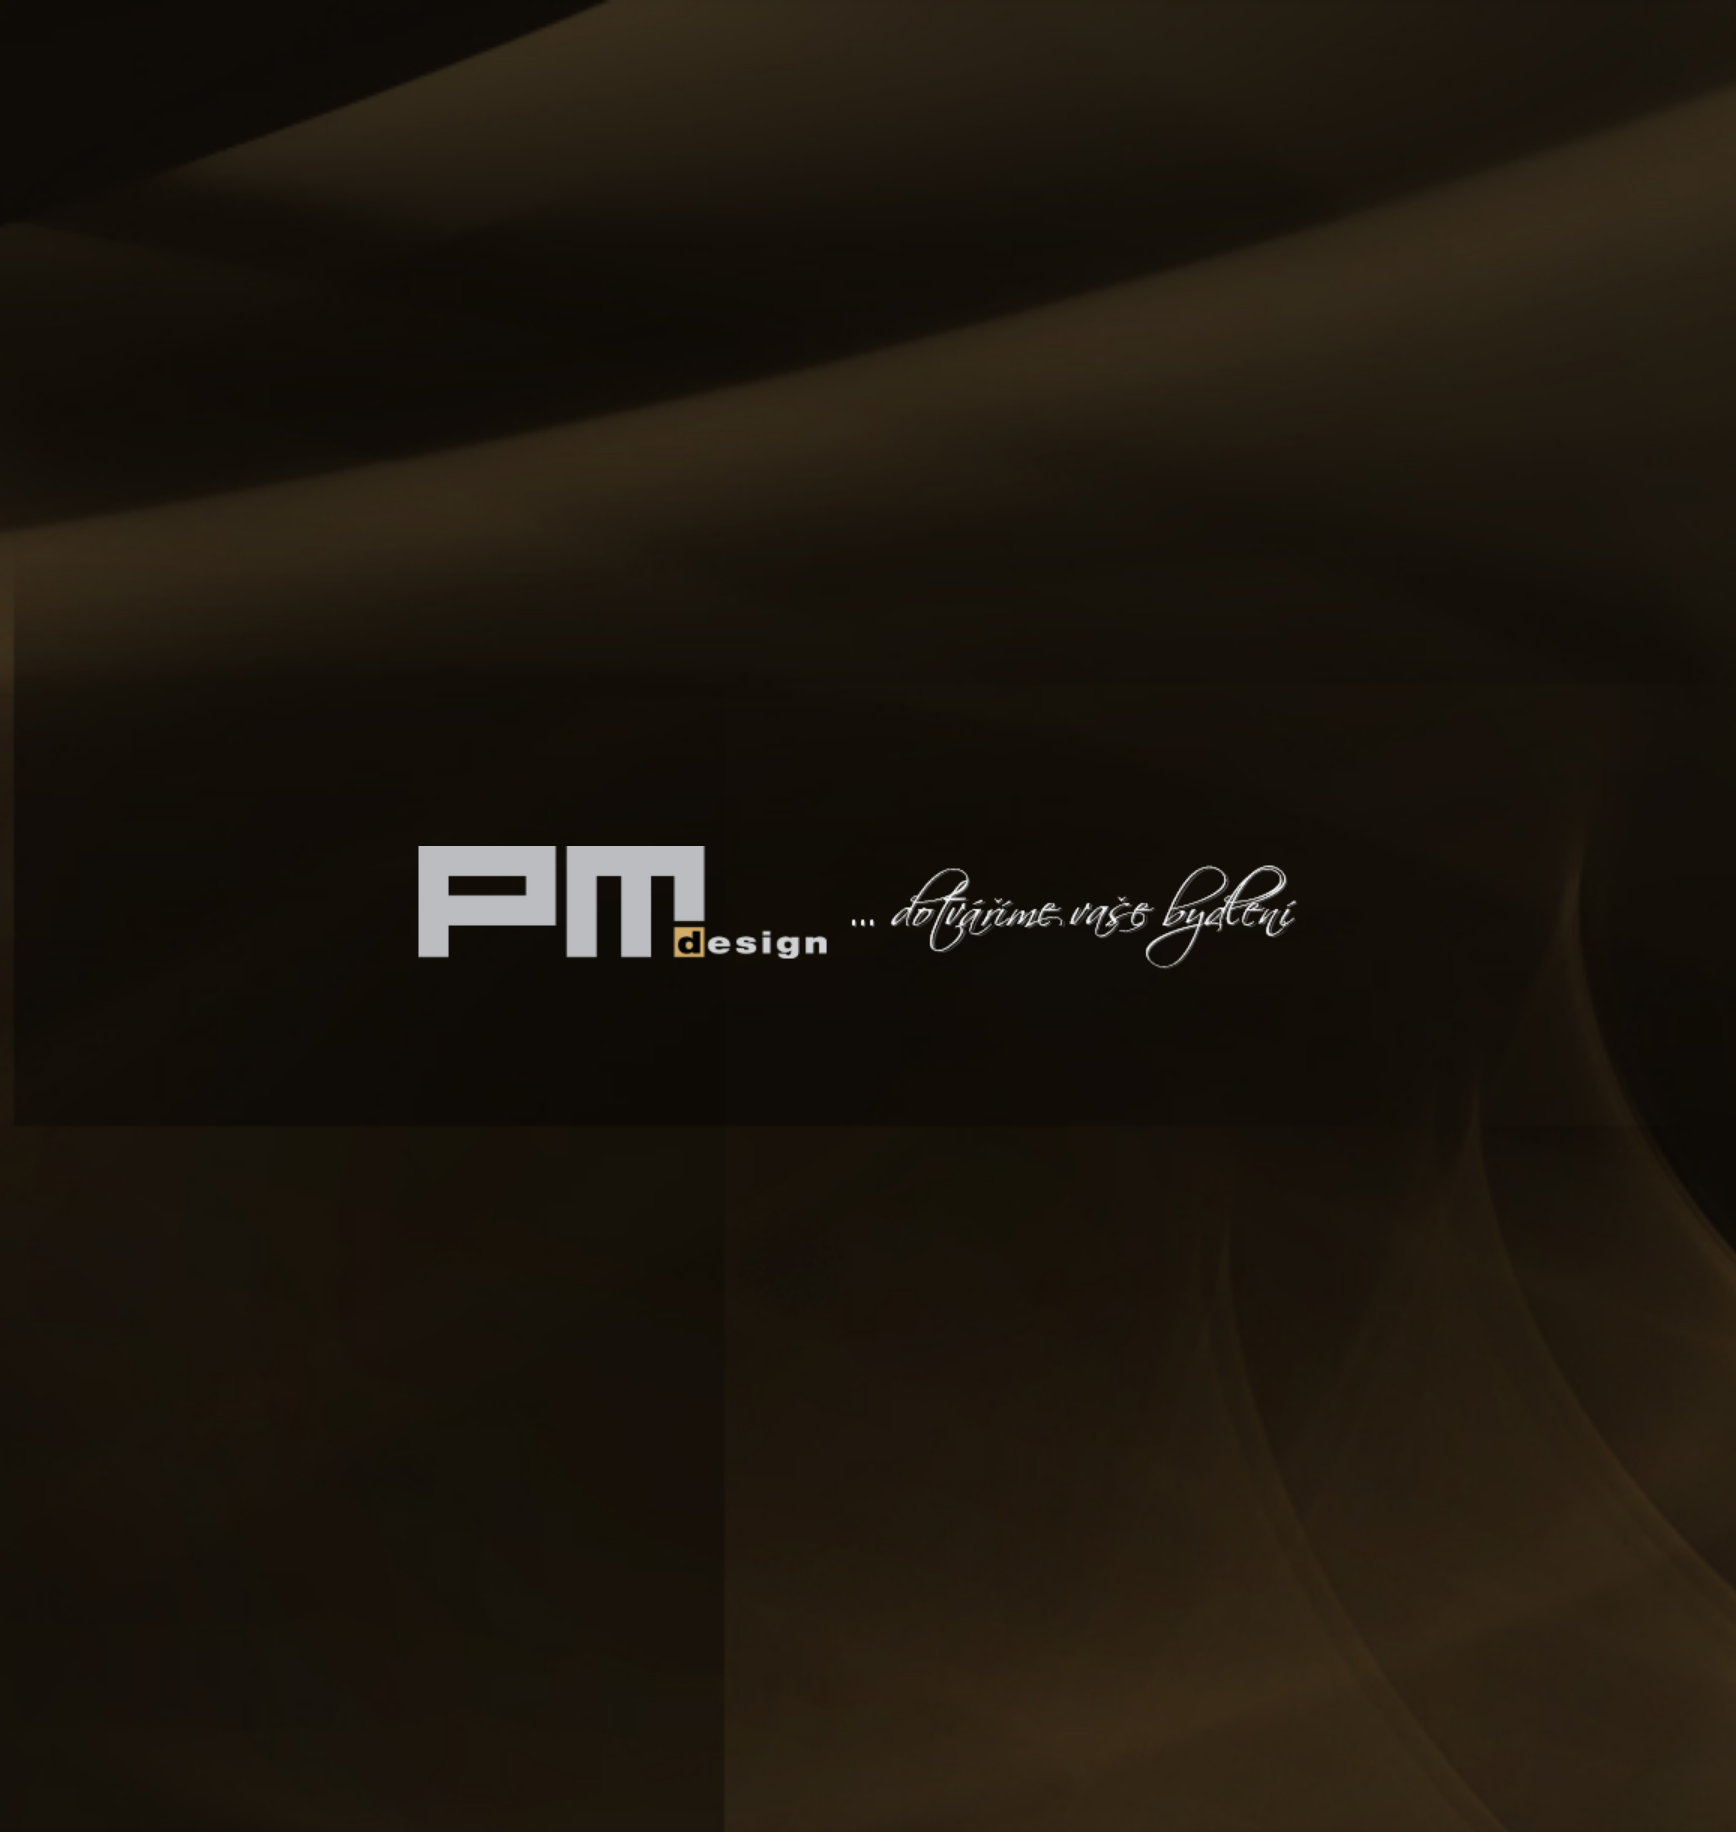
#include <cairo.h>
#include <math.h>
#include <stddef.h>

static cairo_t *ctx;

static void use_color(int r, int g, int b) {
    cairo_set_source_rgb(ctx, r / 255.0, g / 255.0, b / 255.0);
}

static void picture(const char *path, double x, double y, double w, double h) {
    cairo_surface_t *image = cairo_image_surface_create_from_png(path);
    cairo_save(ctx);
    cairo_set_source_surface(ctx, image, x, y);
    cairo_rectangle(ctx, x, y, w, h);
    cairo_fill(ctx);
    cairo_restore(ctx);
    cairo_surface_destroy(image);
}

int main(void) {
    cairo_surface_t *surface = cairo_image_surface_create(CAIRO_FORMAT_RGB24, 1736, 1832);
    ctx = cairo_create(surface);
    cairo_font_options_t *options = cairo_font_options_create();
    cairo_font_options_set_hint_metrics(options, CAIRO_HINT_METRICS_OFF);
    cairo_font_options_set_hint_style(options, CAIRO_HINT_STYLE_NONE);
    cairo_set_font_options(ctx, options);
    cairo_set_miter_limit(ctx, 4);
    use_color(255, 255, 255);
    cairo_paint(ctx);
    picture("img1.png", 0, 0, 1736, 1832);
    picture("img2.png", 418, 846, 880, 124);
    cairo_surface_write_to_png(surface, "result.png");
    cairo_font_options_destroy(options);
    cairo_destroy(ctx);
    cairo_surface_destroy(surface);
    return 0;
}
